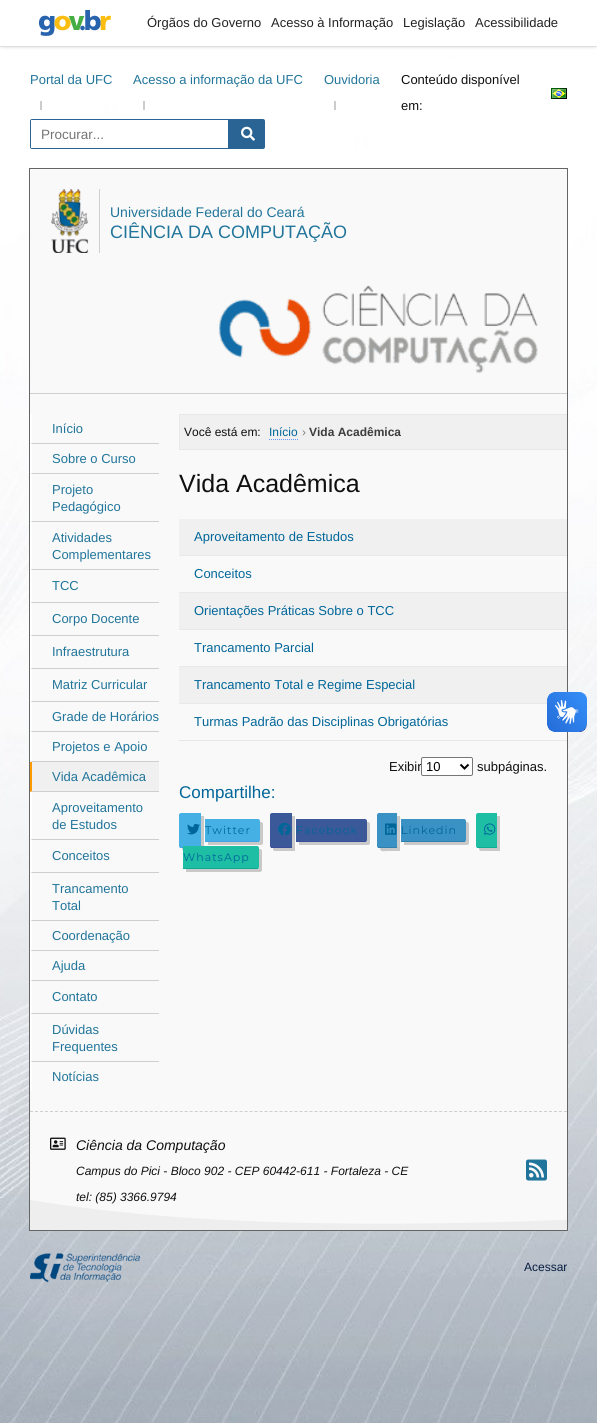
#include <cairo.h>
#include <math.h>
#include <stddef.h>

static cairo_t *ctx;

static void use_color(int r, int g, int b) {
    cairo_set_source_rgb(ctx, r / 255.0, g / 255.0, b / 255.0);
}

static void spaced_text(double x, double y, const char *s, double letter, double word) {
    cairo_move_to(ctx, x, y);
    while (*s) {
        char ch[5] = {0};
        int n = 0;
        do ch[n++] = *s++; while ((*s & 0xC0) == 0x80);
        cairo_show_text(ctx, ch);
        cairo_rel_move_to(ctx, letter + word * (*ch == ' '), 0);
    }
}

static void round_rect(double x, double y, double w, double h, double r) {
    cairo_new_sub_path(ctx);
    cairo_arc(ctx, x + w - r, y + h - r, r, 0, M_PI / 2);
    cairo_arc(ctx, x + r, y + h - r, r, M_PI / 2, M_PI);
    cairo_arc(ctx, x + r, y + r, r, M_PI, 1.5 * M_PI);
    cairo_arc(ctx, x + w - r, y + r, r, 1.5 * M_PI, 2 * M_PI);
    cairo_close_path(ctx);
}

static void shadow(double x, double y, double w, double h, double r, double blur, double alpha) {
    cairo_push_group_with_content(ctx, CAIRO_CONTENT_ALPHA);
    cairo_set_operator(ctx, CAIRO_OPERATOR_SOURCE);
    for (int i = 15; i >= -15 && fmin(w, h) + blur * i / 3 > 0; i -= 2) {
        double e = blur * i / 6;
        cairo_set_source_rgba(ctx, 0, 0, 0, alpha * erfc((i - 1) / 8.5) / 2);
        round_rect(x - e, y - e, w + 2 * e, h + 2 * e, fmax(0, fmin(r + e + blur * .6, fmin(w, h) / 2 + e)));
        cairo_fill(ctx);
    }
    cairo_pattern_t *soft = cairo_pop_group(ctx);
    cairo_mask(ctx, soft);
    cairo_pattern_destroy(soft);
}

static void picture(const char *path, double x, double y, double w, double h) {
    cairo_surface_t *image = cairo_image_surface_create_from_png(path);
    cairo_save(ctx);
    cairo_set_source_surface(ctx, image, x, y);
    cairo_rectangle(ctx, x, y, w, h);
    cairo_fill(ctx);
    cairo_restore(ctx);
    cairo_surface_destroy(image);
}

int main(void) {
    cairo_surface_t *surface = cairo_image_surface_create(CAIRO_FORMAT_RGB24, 597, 1423);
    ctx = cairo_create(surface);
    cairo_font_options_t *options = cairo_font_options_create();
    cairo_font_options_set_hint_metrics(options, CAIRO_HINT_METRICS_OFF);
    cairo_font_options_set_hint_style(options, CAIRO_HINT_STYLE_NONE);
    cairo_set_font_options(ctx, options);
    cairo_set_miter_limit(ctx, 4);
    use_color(255, 255, 255);
    cairo_paint(ctx);
    picture("img1.png", 0, 47, 597, 1376);
    use_color(51, 51, 51);
    shadow(3, 3, 591, 41, 0, 2.5, 1);
    use_color(255, 255, 255);
    cairo_rectangle(ctx, 0, 0, 597, 46);
    cairo_fill(ctx);
    use_color(223, 223, 223);
    cairo_rectangle(ctx, 0, 46, 597, 1);
    cairo_fill(ctx);
    picture("img2.png", 39, 10, 72, 26);
    cairo_select_font_face(ctx, "Liberation Sans", CAIRO_FONT_SLANT_NORMAL, CAIRO_FONT_WEIGHT_NORMAL);
    cairo_set_font_size(ctx, 13);
    use_color(35, 35, 35);
    cairo_move_to(ctx, 147, 27);
    cairo_show_text(ctx, "Órgãos do Governo");
    cairo_move_to(ctx, 271, 27);
    cairo_show_text(ctx, "Acesso à Informação");
    cairo_move_to(ctx, 403, 27);
    cairo_show_text(ctx, "Legislação");
    cairo_move_to(ctx, 475, 27);
    cairo_show_text(ctx, "Acessibilidade");
    use_color(33, 117, 155);
    cairo_move_to(ctx, 30, 84);
    cairo_show_text(ctx, "Portal da UFC");
    use_color(204, 204, 204);
    cairo_rectangle(ctx, 40, 101, 2, 9);
    cairo_fill(ctx);
    use_color(33, 117, 155);
    cairo_move_to(ctx, 133, 84);
    cairo_show_text(ctx, "Acesso a informação da UFC");
    use_color(204, 204, 204);
    cairo_rectangle(ctx, 143, 101, 2, 9);
    cairo_fill(ctx);
    use_color(33, 117, 155);
    cairo_move_to(ctx, 324, 84);
    cairo_show_text(ctx, "Ouvidoria");
    use_color(204, 204, 204);
    cairo_rectangle(ctx, 334, 101, 2, 9);
    cairo_fill(ctx);
    use_color(15, 15, 15);
    cairo_move_to(ctx, 401, 84);
    cairo_show_text(ctx, "Conteúdo disponível");
    cairo_move_to(ctx, 401, 110);
    cairo_show_text(ctx, "em:");
    picture("img3.png", 551, 88, 16, 11);
    round_rect(30.5, 119.5, 234, 29, 1.5);
    use_color(41, 100, 148);
    cairo_set_line_width(ctx, 1);
    cairo_stroke(ctx);
    cairo_rectangle(ctx, 228, 120, 36, 28);
    cairo_fill(ctx);
    use_color(255, 255, 255);
    cairo_rectangle(ctx, 31, 120, 1, 28);
    cairo_fill(ctx);
    cairo_set_font_size(ctx, 13.5);
    use_color(117, 117, 117);
    cairo_move_to(ctx, 41, 139);
    cairo_show_text(ctx, "Procurar...");
    picture("img4.png", 241, 126, 14, 15);
    cairo_rectangle(ctx, 29.5, 168.5, 538, 1062);
    use_color(101, 101, 101);
    cairo_stroke(ctx);
    use_color(249, 249, 249);
    cairo_rectangle(ctx, 30, 169, 537, 1061);
    cairo_fill(ctx);
    use_color(207, 207, 207);
    cairo_rectangle(ctx, 30, 393, 537, 1);
    cairo_fill(ctx);
    cairo_rectangle(ctx, 99, 189, 1, 64);
    cairo_fill(ctx);
    picture("img5.png", 51, 189, 38, 64);
    cairo_set_font_size(ctx, 14);
    use_color(33, 117, 155);
    cairo_move_to(ctx, 110, 217);
    cairo_show_text(ctx, "Universidade Federal do Ceará");
    cairo_set_font_size(ctx, 18);
    cairo_move_to(ctx, 110, 238);
    cairo_show_text(ctx, "CIÊNCIA DA COMPUTAÇÃO");
    picture("img6.png", 218, 285, 320, 89);
    use_color(207, 207, 207);
    cairo_new_path(ctx);
    cairo_move_to(ctx, 159, 444);
    cairo_line_to(ctx, 30, 444);
    cairo_line_to(ctx, 32, 443);
    cairo_line_to(ctx, 159, 443);
    cairo_close_path(ctx);
    cairo_fill(ctx);
    use_color(255, 255, 255);
    cairo_new_path(ctx);
    cairo_move_to(ctx, 30, 444);
    cairo_line_to(ctx, 30, 414);
    cairo_line_to(ctx, 32, 414);
    cairo_line_to(ctx, 32, 443);
    cairo_close_path(ctx);
    cairo_fill(ctx);
    cairo_set_font_size(ctx, 13);
    use_color(33, 117, 155);
    cairo_move_to(ctx, 52, 433);
    cairo_show_text(ctx, "Início");
    use_color(207, 207, 207);
    cairo_new_path(ctx);
    cairo_move_to(ctx, 159, 474);
    cairo_line_to(ctx, 30, 474);
    cairo_line_to(ctx, 32, 473);
    cairo_line_to(ctx, 159, 473);
    cairo_close_path(ctx);
    cairo_fill(ctx);
    use_color(255, 255, 255);
    cairo_new_path(ctx);
    cairo_move_to(ctx, 30, 474);
    cairo_line_to(ctx, 30, 444);
    cairo_line_to(ctx, 32, 444);
    cairo_line_to(ctx, 32, 473);
    cairo_close_path(ctx);
    cairo_fill(ctx);
    use_color(33, 117, 155);
    cairo_move_to(ctx, 52, 463);
    cairo_show_text(ctx, "Sobre o Curso");
    use_color(207, 207, 207);
    cairo_new_path(ctx);
    cairo_move_to(ctx, 159, 522);
    cairo_line_to(ctx, 30, 522);
    cairo_line_to(ctx, 32, 521);
    cairo_line_to(ctx, 159, 521);
    cairo_close_path(ctx);
    cairo_fill(ctx);
    use_color(255, 255, 255);
    cairo_new_path(ctx);
    cairo_move_to(ctx, 30, 522);
    cairo_line_to(ctx, 30, 474);
    cairo_line_to(ctx, 32, 474);
    cairo_line_to(ctx, 32, 521);
    cairo_close_path(ctx);
    cairo_fill(ctx);
    use_color(33, 117, 155);
    cairo_move_to(ctx, 52, 494);
    cairo_show_text(ctx, "Projeto");
    cairo_move_to(ctx, 52, 511);
    cairo_show_text(ctx, "Pedagógico");
    use_color(207, 207, 207);
    cairo_new_path(ctx);
    cairo_move_to(ctx, 159, 570);
    cairo_line_to(ctx, 30, 570);
    cairo_line_to(ctx, 32, 569);
    cairo_line_to(ctx, 159, 569);
    cairo_close_path(ctx);
    cairo_fill(ctx);
    use_color(255, 255, 255);
    cairo_new_path(ctx);
    cairo_move_to(ctx, 30, 570);
    cairo_line_to(ctx, 30, 522);
    cairo_line_to(ctx, 32, 522);
    cairo_line_to(ctx, 32, 569);
    cairo_close_path(ctx);
    cairo_fill(ctx);
    use_color(33, 117, 155);
    cairo_move_to(ctx, 52, 542);
    cairo_show_text(ctx, "Atividades");
    cairo_move_to(ctx, 52, 559);
    cairo_show_text(ctx, "Complementares");
    use_color(207, 207, 207);
    cairo_new_path(ctx);
    cairo_move_to(ctx, 159, 603);
    cairo_line_to(ctx, 30, 603);
    cairo_line_to(ctx, 32, 602);
    cairo_line_to(ctx, 159, 602);
    cairo_close_path(ctx);
    cairo_fill(ctx);
    use_color(255, 255, 255);
    cairo_new_path(ctx);
    cairo_move_to(ctx, 30, 603);
    cairo_line_to(ctx, 30, 570);
    cairo_line_to(ctx, 32, 570);
    cairo_line_to(ctx, 32, 602);
    cairo_close_path(ctx);
    cairo_fill(ctx);
    use_color(33, 117, 155);
    cairo_move_to(ctx, 52, 590);
    cairo_show_text(ctx, "TCC");
    use_color(207, 207, 207);
    cairo_new_path(ctx);
    cairo_move_to(ctx, 159, 636);
    cairo_line_to(ctx, 30, 636);
    cairo_line_to(ctx, 32, 635);
    cairo_line_to(ctx, 159, 635);
    cairo_close_path(ctx);
    cairo_fill(ctx);
    use_color(255, 255, 255);
    cairo_new_path(ctx);
    cairo_move_to(ctx, 30, 636);
    cairo_line_to(ctx, 30, 603);
    cairo_line_to(ctx, 32, 603);
    cairo_line_to(ctx, 32, 635);
    cairo_close_path(ctx);
    cairo_fill(ctx);
    use_color(33, 117, 155);
    cairo_move_to(ctx, 52, 623);
    cairo_show_text(ctx, "Corpo Docente");
    use_color(207, 207, 207);
    cairo_new_path(ctx);
    cairo_move_to(ctx, 159, 669);
    cairo_line_to(ctx, 30, 669);
    cairo_line_to(ctx, 32, 668);
    cairo_line_to(ctx, 159, 668);
    cairo_close_path(ctx);
    cairo_fill(ctx);
    use_color(255, 255, 255);
    cairo_new_path(ctx);
    cairo_move_to(ctx, 30, 669);
    cairo_line_to(ctx, 30, 636);
    cairo_line_to(ctx, 32, 636);
    cairo_line_to(ctx, 32, 668);
    cairo_close_path(ctx);
    cairo_fill(ctx);
    use_color(33, 117, 155);
    cairo_move_to(ctx, 52, 656);
    cairo_show_text(ctx, "Infraestrutura");
    use_color(207, 207, 207);
    cairo_new_path(ctx);
    cairo_move_to(ctx, 159, 702);
    cairo_line_to(ctx, 30, 702);
    cairo_line_to(ctx, 32, 701);
    cairo_line_to(ctx, 159, 701);
    cairo_close_path(ctx);
    cairo_fill(ctx);
    use_color(255, 255, 255);
    cairo_new_path(ctx);
    cairo_move_to(ctx, 30, 702);
    cairo_line_to(ctx, 30, 669);
    cairo_line_to(ctx, 32, 669);
    cairo_line_to(ctx, 32, 701);
    cairo_close_path(ctx);
    cairo_fill(ctx);
    use_color(33, 117, 155);
    cairo_move_to(ctx, 52, 689);
    cairo_show_text(ctx, "Matriz Curricular");
    use_color(207, 207, 207);
    cairo_new_path(ctx);
    cairo_move_to(ctx, 159, 732);
    cairo_line_to(ctx, 30, 732);
    cairo_line_to(ctx, 32, 731);
    cairo_line_to(ctx, 159, 731);
    cairo_close_path(ctx);
    cairo_fill(ctx);
    use_color(255, 255, 255);
    cairo_new_path(ctx);
    cairo_move_to(ctx, 30, 732);
    cairo_line_to(ctx, 30, 702);
    cairo_line_to(ctx, 32, 702);
    cairo_line_to(ctx, 32, 731);
    cairo_close_path(ctx);
    cairo_fill(ctx);
    use_color(33, 117, 155);
    cairo_move_to(ctx, 52, 721);
    cairo_show_text(ctx, "Grade de Horários");
    use_color(207, 207, 207);
    cairo_new_path(ctx);
    cairo_move_to(ctx, 159, 762);
    cairo_line_to(ctx, 30, 762);
    cairo_line_to(ctx, 32, 761);
    cairo_line_to(ctx, 159, 761);
    cairo_close_path(ctx);
    cairo_fill(ctx);
    use_color(255, 255, 255);
    cairo_new_path(ctx);
    cairo_move_to(ctx, 30, 762);
    cairo_line_to(ctx, 30, 732);
    cairo_line_to(ctx, 32, 732);
    cairo_line_to(ctx, 32, 761);
    cairo_close_path(ctx);
    cairo_fill(ctx);
    use_color(33, 117, 155);
    cairo_move_to(ctx, 52, 751);
    cairo_show_text(ctx, "Projetos e Apoio");
    use_color(240, 240, 240);
    cairo_rectangle(ctx, 30, 762, 129, 30);
    cairo_fill(ctx);
    use_color(207, 207, 207);
    cairo_new_path(ctx);
    cairo_move_to(ctx, 159, 792);
    cairo_line_to(ctx, 30, 792);
    cairo_line_to(ctx, 32, 791);
    cairo_line_to(ctx, 159, 791);
    cairo_close_path(ctx);
    cairo_fill(ctx);
    use_color(255, 153, 0);
    cairo_new_path(ctx);
    cairo_move_to(ctx, 30, 792);
    cairo_line_to(ctx, 30, 762);
    cairo_line_to(ctx, 32, 762);
    cairo_line_to(ctx, 32, 791);
    cairo_close_path(ctx);
    cairo_fill(ctx);
    use_color(33, 117, 155);
    cairo_move_to(ctx, 52, 781);
    cairo_show_text(ctx, "Vida Acadêmica");
    use_color(207, 207, 207);
    cairo_new_path(ctx);
    cairo_move_to(ctx, 159, 840);
    cairo_line_to(ctx, 30, 840);
    cairo_line_to(ctx, 32, 839);
    cairo_line_to(ctx, 159, 839);
    cairo_close_path(ctx);
    cairo_fill(ctx);
    use_color(255, 255, 255);
    cairo_new_path(ctx);
    cairo_move_to(ctx, 30, 840);
    cairo_line_to(ctx, 30, 792);
    cairo_line_to(ctx, 32, 792);
    cairo_line_to(ctx, 32, 839);
    cairo_close_path(ctx);
    cairo_fill(ctx);
    use_color(33, 117, 155);
    cairo_move_to(ctx, 52, 812);
    cairo_show_text(ctx, "Aproveitamento");
    cairo_move_to(ctx, 52, 829);
    cairo_show_text(ctx, "de Estudos");
    use_color(207, 207, 207);
    cairo_new_path(ctx);
    cairo_move_to(ctx, 159, 873);
    cairo_line_to(ctx, 30, 873);
    cairo_line_to(ctx, 32, 872);
    cairo_line_to(ctx, 159, 872);
    cairo_close_path(ctx);
    cairo_fill(ctx);
    use_color(255, 255, 255);
    cairo_new_path(ctx);
    cairo_move_to(ctx, 30, 873);
    cairo_line_to(ctx, 30, 840);
    cairo_line_to(ctx, 32, 840);
    cairo_line_to(ctx, 32, 872);
    cairo_close_path(ctx);
    cairo_fill(ctx);
    use_color(33, 117, 155);
    cairo_move_to(ctx, 52, 860);
    cairo_show_text(ctx, "Conceitos");
    use_color(207, 207, 207);
    cairo_new_path(ctx);
    cairo_move_to(ctx, 159, 921);
    cairo_line_to(ctx, 30, 921);
    cairo_line_to(ctx, 32, 920);
    cairo_line_to(ctx, 159, 920);
    cairo_close_path(ctx);
    cairo_fill(ctx);
    use_color(255, 255, 255);
    cairo_new_path(ctx);
    cairo_move_to(ctx, 30, 921);
    cairo_line_to(ctx, 30, 873);
    cairo_line_to(ctx, 32, 873);
    cairo_line_to(ctx, 32, 920);
    cairo_close_path(ctx);
    cairo_fill(ctx);
    use_color(33, 117, 155);
    cairo_move_to(ctx, 52, 893);
    cairo_show_text(ctx, "Trancamento");
    cairo_move_to(ctx, 52, 910);
    cairo_show_text(ctx, "Total");
    use_color(207, 207, 207);
    cairo_new_path(ctx);
    cairo_move_to(ctx, 159, 951);
    cairo_line_to(ctx, 30, 951);
    cairo_line_to(ctx, 32, 950);
    cairo_line_to(ctx, 159, 950);
    cairo_close_path(ctx);
    cairo_fill(ctx);
    use_color(255, 255, 255);
    cairo_new_path(ctx);
    cairo_move_to(ctx, 30, 951);
    cairo_line_to(ctx, 30, 921);
    cairo_line_to(ctx, 32, 921);
    cairo_line_to(ctx, 32, 950);
    cairo_close_path(ctx);
    cairo_fill(ctx);
    use_color(33, 117, 155);
    cairo_move_to(ctx, 52, 940);
    cairo_show_text(ctx, "Coordenação");
    use_color(207, 207, 207);
    cairo_new_path(ctx);
    cairo_move_to(ctx, 159, 981);
    cairo_line_to(ctx, 30, 981);
    cairo_line_to(ctx, 32, 980);
    cairo_line_to(ctx, 159, 980);
    cairo_close_path(ctx);
    cairo_fill(ctx);
    use_color(255, 255, 255);
    cairo_new_path(ctx);
    cairo_move_to(ctx, 30, 981);
    cairo_line_to(ctx, 30, 951);
    cairo_line_to(ctx, 32, 951);
    cairo_line_to(ctx, 32, 980);
    cairo_close_path(ctx);
    cairo_fill(ctx);
    use_color(33, 117, 155);
    cairo_move_to(ctx, 52, 970);
    cairo_show_text(ctx, "Ajuda");
    use_color(207, 207, 207);
    cairo_new_path(ctx);
    cairo_move_to(ctx, 159, 1014);
    cairo_line_to(ctx, 30, 1014);
    cairo_line_to(ctx, 32, 1013);
    cairo_line_to(ctx, 159, 1013);
    cairo_close_path(ctx);
    cairo_fill(ctx);
    use_color(255, 255, 255);
    cairo_new_path(ctx);
    cairo_move_to(ctx, 30, 1014);
    cairo_line_to(ctx, 30, 981);
    cairo_line_to(ctx, 32, 981);
    cairo_line_to(ctx, 32, 1013);
    cairo_close_path(ctx);
    cairo_fill(ctx);
    use_color(33, 117, 155);
    cairo_move_to(ctx, 52, 1001);
    cairo_show_text(ctx, "Contato");
    use_color(207, 207, 207);
    cairo_new_path(ctx);
    cairo_move_to(ctx, 159, 1062);
    cairo_line_to(ctx, 30, 1062);
    cairo_line_to(ctx, 32, 1061);
    cairo_line_to(ctx, 159, 1061);
    cairo_close_path(ctx);
    cairo_fill(ctx);
    use_color(255, 255, 255);
    cairo_new_path(ctx);
    cairo_move_to(ctx, 30, 1062);
    cairo_line_to(ctx, 30, 1014);
    cairo_line_to(ctx, 32, 1014);
    cairo_line_to(ctx, 32, 1061);
    cairo_close_path(ctx);
    cairo_fill(ctx);
    use_color(33, 117, 155);
    cairo_move_to(ctx, 52, 1034);
    cairo_show_text(ctx, "Dúvidas");
    cairo_move_to(ctx, 52, 1051);
    cairo_show_text(ctx, "Frequentes");
    use_color(255, 255, 255);
    cairo_rectangle(ctx, 30, 1062, 2, 29);
    cairo_fill(ctx);
    use_color(33, 117, 155);
    cairo_move_to(ctx, 52, 1081);
    cairo_show_text(ctx, "Notícias");
    use_color(240, 240, 240);
    cairo_rectangle(ctx, 180, 415, 387, 34);
    cairo_fill(ctx);
    use_color(232, 232, 232);
    cairo_rectangle(ctx, 179, 414, 388, 1);
    cairo_fill(ctx);
    cairo_rectangle(ctx, 179, 449, 388, 1);
    cairo_fill(ctx);
    cairo_rectangle(ctx, 179, 414, 1, 36);
    cairo_fill(ctx);
    cairo_set_font_size(ctx, 12);
    use_color(15, 15, 15);
    cairo_move_to(ctx, 184, 436);
    cairo_show_text(ctx, "Você está em:");
    use_color(0, 102, 153);
    cairo_move_to(ctx, 269, 436);
    cairo_show_text(ctx, "Início");
    cairo_new_path(ctx);
    cairo_move_to(ctx, 269, 439.5);
    cairo_line_to(ctx, 298, 439.5);
    use_color(102, 153, 255);
    cairo_set_dash(ctx, (double[]){1, 1}, 2, 0);
    cairo_stroke(ctx);
    use_color(128, 128, 128);
    cairo_move_to(ctx, 302, 436);
    cairo_show_text(ctx, "›");
    cairo_select_font_face(ctx, "Liberation Sans", CAIRO_FONT_SLANT_NORMAL, CAIRO_FONT_WEIGHT_BOLD);
    use_color(61, 61, 61);
    cairo_move_to(ctx, 309, 436);
    cairo_show_text(ctx, "Vida Acadêmica");
    cairo_select_font_face(ctx, "Liberation Sans", CAIRO_FONT_SLANT_NORMAL, CAIRO_FONT_WEIGHT_NORMAL);
    cairo_set_font_size(ctx, 25);
    use_color(15, 15, 15);
    cairo_move_to(ctx, 179, 492);
    cairo_show_text(ctx, "Vida Acadêmica");
    use_color(240, 240, 240);
    cairo_rectangle(ctx, 179, 519, 388, 36);
    cairo_fill(ctx);
    use_color(232, 232, 232);
    cairo_rectangle(ctx, 179, 555, 388, 1);
    cairo_fill(ctx);
    cairo_set_font_size(ctx, 13);
    use_color(0, 102, 153);
    cairo_move_to(ctx, 194, 541);
    cairo_show_text(ctx, "Aproveitamento de Estudos");
    use_color(232, 232, 232);
    cairo_rectangle(ctx, 179, 592, 388, 1);
    cairo_fill(ctx);
    use_color(0, 102, 153);
    cairo_move_to(ctx, 194, 578);
    cairo_show_text(ctx, "Conceitos");
    use_color(240, 240, 240);
    cairo_rectangle(ctx, 179, 593, 388, 36);
    cairo_fill(ctx);
    use_color(232, 232, 232);
    cairo_rectangle(ctx, 179, 629, 388, 1);
    cairo_fill(ctx);
    use_color(0, 102, 153);
    cairo_move_to(ctx, 194, 615);
    cairo_show_text(ctx, "Orientações Práticas Sobre o TCC");
    use_color(232, 232, 232);
    cairo_rectangle(ctx, 179, 666, 388, 1);
    cairo_fill(ctx);
    use_color(0, 102, 153);
    cairo_move_to(ctx, 194, 652);
    cairo_show_text(ctx, "Trancamento Parcial");
    use_color(240, 240, 240);
    cairo_rectangle(ctx, 179, 667, 388, 36);
    cairo_fill(ctx);
    use_color(232, 232, 232);
    cairo_rectangle(ctx, 179, 703, 368, 1);
    cairo_fill(ctx);
    use_color(0, 102, 153);
    cairo_move_to(ctx, 194, 689);
    cairo_show_text(ctx, "Trancamento Total e Regime Especial");
    use_color(232, 232, 232);
    cairo_rectangle(ctx, 179, 740, 388, 1);
    cairo_fill(ctx);
    use_color(0, 102, 153);
    cairo_move_to(ctx, 194, 726);
    cairo_show_text(ctx, "Turmas Padrão das Disciplinas Obrigatórias");
    use_color(15, 15, 15);
    cairo_move_to(ctx, 389, 771);
    cairo_show_text(ctx, "Exibir");
    use_color(255, 255, 255);
    round_rect(421.5, 757.5, 51, 18, 1.5);
    cairo_fill_preserve(ctx);
    use_color(118, 118, 118);
    cairo_set_dash(ctx, NULL, 0, 0);
    cairo_stroke(ctx);
    cairo_new_path(ctx);
    cairo_move_to(ctx, 460.5, 764.5);
    cairo_line_to(ctx, 464.5, 768.5);
    cairo_line_to(ctx, 468.5, 764.5);
    use_color(0, 0, 0);
    cairo_set_line_width(ctx, 2);
    cairo_stroke(ctx);
    cairo_move_to(ctx, 426, 771);
    cairo_show_text(ctx, "10");
    use_color(15, 15, 15);
    cairo_move_to(ctx, 477, 771);
    cairo_show_text(ctx, "subpáginas.");
    cairo_set_font_size(ctx, 17);
    use_color(0, 102, 153);
    cairo_move_to(ctx, 179, 798);
    cairo_show_text(ctx, "Compartilhe:");
    use_color(201, 201, 201);
    cairo_new_path(ctx);
    cairo_move_to(ctx, 182, 848);
    cairo_line_to(ctx, 182, 849);
    cairo_curve_to(ctx, 182, 850, 183, 851, 184, 851);
    cairo_line_to(ctx, 204, 851);
    cairo_line_to(ctx, 204, 816);
    cairo_line_to(ctx, 201, 816);
    cairo_line_to(ctx, 201, 848);
    cairo_close_path(ctx);
    cairo_fill(ctx);
    use_color(69, 176, 227);
    cairo_new_path(ctx);
    cairo_move_to(ctx, 181, 813);
    cairo_line_to(ctx, 201, 813);
    cairo_line_to(ctx, 201, 848);
    cairo_line_to(ctx, 181, 848);
    cairo_curve_to(ctx, 180, 848, 179, 847, 179, 846);
    cairo_line_to(ctx, 179, 815);
    cairo_curve_to(ctx, 179, 814, 180, 813, 181, 813);
    cairo_close_path(ctx);
    cairo_fill(ctx);
    use_color(69, 163, 227);
    cairo_rectangle(ctx, 180, 847, 3, 1);
    cairo_fill(ctx);
    use_color(201, 201, 201);
    cairo_new_path(ctx);
    cairo_move_to(ctx, 208, 842);
    cairo_line_to(ctx, 208, 845);
    cairo_line_to(ctx, 261, 845);
    cairo_curve_to(ctx, 262, 845, 263, 844, 263, 843);
    cairo_line_to(ctx, 263, 824);
    cairo_curve_to(ctx, 263, 823, 262, 822, 261, 822);
    cairo_line_to(ctx, 260, 822);
    cairo_line_to(ctx, 260, 840);
    cairo_curve_to(ctx, 260, 841, 259, 842, 258, 842);
    cairo_close_path(ctx);
    cairo_fill(ctx);
    use_color(69, 176, 227);
    cairo_new_path(ctx);
    cairo_move_to(ctx, 205, 819);
    cairo_line_to(ctx, 258, 819);
    cairo_curve_to(ctx, 259, 819, 260, 820, 260, 821);
    cairo_line_to(ctx, 260, 840);
    cairo_curve_to(ctx, 260, 841, 259, 842, 258, 842);
    cairo_line_to(ctx, 205, 842);
    cairo_close_path(ctx);
    cairo_fill(ctx);
    use_color(69, 163, 227);
    cairo_rectangle(ctx, 205, 841, 54, 1);
    cairo_fill(ctx);
    picture("img7.png", 187, 823, 13, 12);
    cairo_select_font_face(ctx, "Montserrat", CAIRO_FONT_SLANT_NORMAL, CAIRO_FONT_WEIGHT_NORMAL);
    cairo_set_font_size(ctx, 11);
    use_color(0, 102, 153);
    spaced_text(205, 834, "Twitter", 1, 0);
    use_color(201, 201, 201);
    cairo_new_path(ctx);
    cairo_move_to(ctx, 273, 848);
    cairo_line_to(ctx, 273, 849);
    cairo_curve_to(ctx, 273, 850, 274, 851, 275, 851);
    cairo_line_to(ctx, 295, 851);
    cairo_line_to(ctx, 295, 816);
    cairo_line_to(ctx, 292, 816);
    cairo_line_to(ctx, 292, 848);
    cairo_close_path(ctx);
    cairo_fill(ctx);
    use_color(59, 89, 152);
    cairo_new_path(ctx);
    cairo_move_to(ctx, 272, 813);
    cairo_line_to(ctx, 292, 813);
    cairo_line_to(ctx, 292, 848);
    cairo_line_to(ctx, 272, 848);
    cairo_curve_to(ctx, 271, 848, 270, 847, 270, 846);
    cairo_line_to(ctx, 270, 815);
    cairo_curve_to(ctx, 270, 814, 271, 813, 272, 813);
    cairo_close_path(ctx);
    cairo_fill(ctx);
    use_color(59, 76, 152);
    cairo_rectangle(ctx, 271, 847, 21, 1);
    cairo_fill(ctx);
    use_color(201, 201, 201);
    cairo_new_path(ctx);
    cairo_move_to(ctx, 299, 842);
    cairo_line_to(ctx, 299, 845);
    cairo_line_to(ctx, 368, 845);
    cairo_curve_to(ctx, 369, 845, 370, 844, 370, 843);
    cairo_line_to(ctx, 370, 824);
    cairo_curve_to(ctx, 370, 823, 369, 822, 368, 822);
    cairo_line_to(ctx, 367, 822);
    cairo_line_to(ctx, 367, 840);
    cairo_curve_to(ctx, 367, 841, 366, 842, 365, 842);
    cairo_close_path(ctx);
    cairo_fill(ctx);
    use_color(59, 89, 152);
    cairo_new_path(ctx);
    cairo_move_to(ctx, 296, 819);
    cairo_line_to(ctx, 365, 819);
    cairo_curve_to(ctx, 366, 819, 367, 820, 367, 821);
    cairo_line_to(ctx, 367, 840);
    cairo_curve_to(ctx, 367, 841, 366, 842, 365, 842);
    cairo_line_to(ctx, 296, 842);
    cairo_close_path(ctx);
    cairo_fill(ctx);
    use_color(59, 76, 152);
    cairo_rectangle(ctx, 296, 841, 70, 1);
    cairo_fill(ctx);
    picture("img8.png", 278, 822, 13, 14);
    use_color(0, 102, 153);
    spaced_text(296, 834, "Facebook", 1, 0);
    use_color(201, 201, 201);
    cairo_new_path(ctx);
    cairo_move_to(ctx, 380, 848);
    cairo_curve_to(ctx, 380, 852.5, 384, 851, 388, 851);
    cairo_line_to(ctx, 400, 851);
    cairo_line_to(ctx, 400, 816);
    cairo_line_to(ctx, 397, 816);
    cairo_line_to(ctx, 397, 848);
    cairo_close_path(ctx);
    cairo_fill(ctx);
    use_color(58, 145, 195);
    cairo_new_path(ctx);
    cairo_move_to(ctx, 379, 813);
    cairo_line_to(ctx, 397, 813);
    cairo_line_to(ctx, 397, 848);
    cairo_line_to(ctx, 379, 848);
    cairo_curve_to(ctx, 378, 848, 377, 847, 377, 846);
    cairo_line_to(ctx, 377, 815);
    cairo_curve_to(ctx, 377, 814, 378, 813, 379, 813);
    cairo_close_path(ctx);
    cairo_fill(ctx);
    use_color(50, 127, 172);
    cairo_rectangle(ctx, 378, 847, 19, 1);
    cairo_fill(ctx);
    use_color(201, 201, 201);
    cairo_new_path(ctx);
    cairo_move_to(ctx, 404, 842);
    cairo_line_to(ctx, 404, 845);
    cairo_line_to(ctx, 467, 845);
    cairo_curve_to(ctx, 468, 845, 469, 844, 469, 843);
    cairo_line_to(ctx, 469, 824);
    cairo_curve_to(ctx, 469, 823, 468, 822, 467, 822);
    cairo_line_to(ctx, 466, 822);
    cairo_line_to(ctx, 466, 840);
    cairo_curve_to(ctx, 466, 841, 465, 842, 464, 842);
    cairo_close_path(ctx);
    cairo_fill(ctx);
    use_color(58, 145, 195);
    cairo_new_path(ctx);
    cairo_move_to(ctx, 401, 819);
    cairo_line_to(ctx, 464, 819);
    cairo_curve_to(ctx, 465, 819, 466, 820, 466, 821);
    cairo_line_to(ctx, 466, 840);
    cairo_curve_to(ctx, 466, 841, 465, 842, 464, 842);
    cairo_line_to(ctx, 401, 842);
    cairo_close_path(ctx);
    cairo_fill(ctx);
    use_color(50, 127, 172);
    cairo_rectangle(ctx, 401, 841, 64, 1);
    cairo_fill(ctx);
    picture("img9.png", 385, 823, 12, 12);
    use_color(0, 102, 153);
    spaced_text(401, 834, "Linkedin", 1, 0);
    use_color(201, 201, 201);
    cairo_new_path(ctx);
    cairo_move_to(ctx, 479, 848);
    cairo_line_to(ctx, 479, 849);
    cairo_curve_to(ctx, 479, 850, 480, 851, 481, 851);
    cairo_line_to(ctx, 500, 851);
    cairo_line_to(ctx, 500, 816);
    cairo_line_to(ctx, 497, 816);
    cairo_line_to(ctx, 497, 848);
    cairo_close_path(ctx);
    cairo_fill(ctx);
    use_color(30, 190, 165);
    cairo_new_path(ctx);
    cairo_move_to(ctx, 478, 813);
    cairo_line_to(ctx, 497, 813);
    cairo_line_to(ctx, 497, 848);
    cairo_line_to(ctx, 478, 848);
    cairo_curve_to(ctx, 477, 848, 476, 847, 476, 846);
    cairo_line_to(ctx, 476, 815);
    cairo_curve_to(ctx, 476, 814, 477, 813, 478, 813);
    cairo_close_path(ctx);
    cairo_fill(ctx);
    use_color(15, 171, 146);
    cairo_rectangle(ctx, 477, 847, 20, 1);
    cairo_fill(ctx);
    use_color(201, 201, 201);
    cairo_new_path(ctx);
    cairo_move_to(ctx, 186, 869);
    cairo_line_to(ctx, 186, 872);
    cairo_line_to(ctx, 260, 872);
    cairo_curve_to(ctx, 261, 872, 262, 871, 262, 870);
    cairo_line_to(ctx, 262, 851);
    cairo_curve_to(ctx, 262, 850, 261, 849, 260, 849);
    cairo_line_to(ctx, 259, 849);
    cairo_line_to(ctx, 259, 867);
    cairo_curve_to(ctx, 259, 868, 258, 869, 257, 869);
    cairo_close_path(ctx);
    cairo_fill(ctx);
    use_color(30, 190, 165);
    cairo_new_path(ctx);
    cairo_move_to(ctx, 183, 846);
    cairo_line_to(ctx, 257, 846);
    cairo_curve_to(ctx, 258, 846, 259, 847, 259, 848);
    cairo_line_to(ctx, 259, 867);
    cairo_curve_to(ctx, 259, 868, 258, 869, 257, 869);
    cairo_line_to(ctx, 183, 869);
    cairo_close_path(ctx);
    cairo_fill(ctx);
    use_color(15, 171, 146);
    cairo_rectangle(ctx, 183, 868, 75, 1);
    cairo_fill(ctx);
    picture("img10.png", 484, 823, 12, 12);
    use_color(0, 102, 153);
    spaced_text(183, 861, "WhatsApp", 1, 0);
    picture("img11.png", 30, 1200, 537, 30);
    cairo_new_path(ctx);
    cairo_move_to(ctx, 30, 1111.5);
    cairo_line_to(ctx, 567, 1111.5);
    use_color(207, 207, 207);
    cairo_set_line_width(ctx, 1);
    cairo_set_dash(ctx, (double[]){3, 1.99}, 2, 0);
    cairo_stroke(ctx);
    picture("img12.png", 50, 1137, 16, 13);
    cairo_select_font_face(ctx, "Liberation Sans", CAIRO_FONT_SLANT_ITALIC, CAIRO_FONT_WEIGHT_NORMAL);
    cairo_set_font_size(ctx, 14);
    use_color(15, 15, 15);
    cairo_move_to(ctx, 76, 1150);
    cairo_show_text(ctx, "Ciência da Computação");
    cairo_set_font_size(ctx, 12);
    cairo_move_to(ctx, 76, 1175);
    cairo_show_text(ctx, "Campus do Pici - Bloco 902 - CEP 60442-611 - Fortaleza - CE");
    cairo_move_to(ctx, 76, 1201);
    cairo_show_text(ctx, "tel: (85) 3366.9794");
    picture("img13.png", 526, 1159, 21, 22);
    picture("img14.png", 547, 692, 40, 40);
    picture("img15.png", 547, 692, 40, 40);
    picture("img16.png", 30, 1253, 110, 30);
    cairo_select_font_face(ctx, "Liberation Sans", CAIRO_FONT_SLANT_NORMAL, CAIRO_FONT_WEIGHT_NORMAL);
    use_color(7, 29, 65);
    cairo_move_to(ctx, 524, 1271);
    cairo_show_text(ctx, "Acessar");
    cairo_surface_write_to_png(surface, "result.png");
    cairo_font_options_destroy(options);
    cairo_destroy(ctx);
    cairo_surface_destroy(surface);
    return 0;
}
